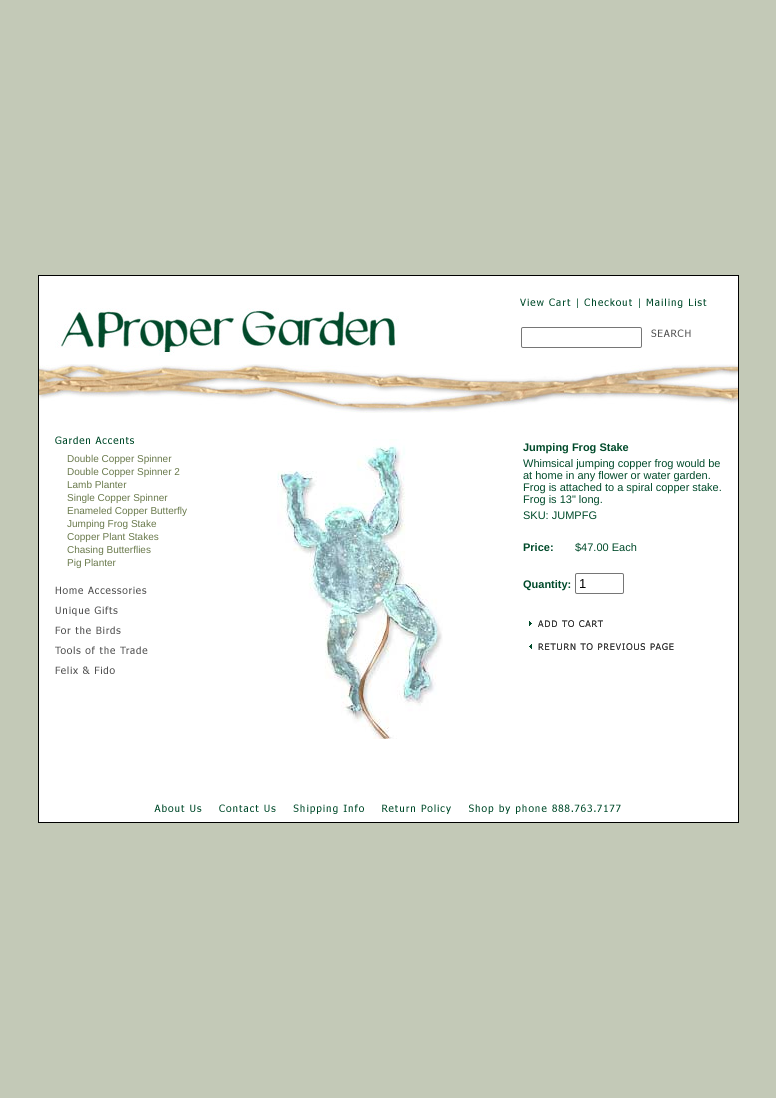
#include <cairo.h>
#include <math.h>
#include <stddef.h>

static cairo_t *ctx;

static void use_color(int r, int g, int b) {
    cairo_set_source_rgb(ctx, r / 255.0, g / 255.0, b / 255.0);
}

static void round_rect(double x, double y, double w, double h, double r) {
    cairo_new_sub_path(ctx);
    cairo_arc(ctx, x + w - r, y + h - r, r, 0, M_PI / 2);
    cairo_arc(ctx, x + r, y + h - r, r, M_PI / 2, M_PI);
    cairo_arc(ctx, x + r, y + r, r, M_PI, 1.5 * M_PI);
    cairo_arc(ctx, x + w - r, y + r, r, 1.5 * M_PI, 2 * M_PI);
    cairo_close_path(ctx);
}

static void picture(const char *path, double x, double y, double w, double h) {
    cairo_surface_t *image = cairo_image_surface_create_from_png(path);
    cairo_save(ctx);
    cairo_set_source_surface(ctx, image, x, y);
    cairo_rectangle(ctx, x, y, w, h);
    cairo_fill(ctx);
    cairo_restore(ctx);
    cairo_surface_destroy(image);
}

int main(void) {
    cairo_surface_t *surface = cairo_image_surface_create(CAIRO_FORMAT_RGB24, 776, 1098);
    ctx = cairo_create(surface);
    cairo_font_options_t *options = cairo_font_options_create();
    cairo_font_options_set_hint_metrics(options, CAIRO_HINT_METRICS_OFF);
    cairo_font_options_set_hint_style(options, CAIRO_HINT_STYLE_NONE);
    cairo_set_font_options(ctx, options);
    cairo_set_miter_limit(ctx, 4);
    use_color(195, 201, 183);
    cairo_paint(ctx);
    use_color(0, 0, 0);
    cairo_rectangle(ctx, 38, 275, 701, 548);
    cairo_fill(ctx);
    use_color(255, 255, 255);
    cairo_rectangle(ctx, 39, 276, 699, 546);
    cairo_fill(ctx);
    picture("img1.png", 55, 308, 344, 48);
    picture("img2.png", 520, 298, 51, 8);
    picture("img3.png", 577, 298, 1, 10);
    picture("img4.png", 584, 298, 48, 8);
    picture("img3.png", 639, 298, 1, 10);
    picture("img5.png", 646, 298, 61, 10);
    round_rect(521.5, 327.5, 120, 20, 1.5);
    use_color(118, 118, 118);
    cairo_set_line_width(ctx, 1);
    cairo_stroke(ctx);
    picture("img6.png", 651, 329, 40, 8);
    picture("img7.png", 39, 364, 699, 49);
    picture("img8.png", 55, 436, 79, 8);
    cairo_select_font_face(ctx, "Liberation Sans", CAIRO_FONT_SLANT_NORMAL, CAIRO_FONT_WEIGHT_NORMAL);
    cairo_set_font_size(ctx, 10);
    use_color(105, 121, 75);
    cairo_move_to(ctx, 67, 462);
    cairo_show_text(ctx, "Double Copper Spinner");
    cairo_move_to(ctx, 67, 475);
    cairo_show_text(ctx, "Double Copper Spinner 2");
    cairo_move_to(ctx, 67, 488);
    cairo_show_text(ctx, "Lamb Planter");
    cairo_move_to(ctx, 67, 501);
    cairo_show_text(ctx, "Single Copper Spinner");
    cairo_move_to(ctx, 67, 514);
    cairo_show_text(ctx, "Enameled Copper Butterfly");
    cairo_move_to(ctx, 67, 527);
    cairo_show_text(ctx, "Jumping Frog Stake");
    cairo_move_to(ctx, 67, 540);
    cairo_show_text(ctx, "Copper Plant Stakes");
    cairo_move_to(ctx, 67, 553);
    cairo_show_text(ctx, "Chasing Butterflies");
    cairo_move_to(ctx, 67, 566);
    cairo_show_text(ctx, "Pig Planter");
    picture("img9.png", 55, 586, 92, 8);
    picture("img10.png", 55, 606, 63, 10);
    picture("img11.png", 55, 626, 66, 8);
    picture("img12.png", 55, 646, 93, 8);
    picture("img13.png", 55, 666, 60, 8);
    picture("img14.png", 277, 439, 166, 300);
    cairo_select_font_face(ctx, "Liberation Sans", CAIRO_FONT_SLANT_NORMAL, CAIRO_FONT_WEIGHT_BOLD);
    cairo_set_font_size(ctx, 11);
    use_color(0, 74, 42);
    cairo_move_to(ctx, 523, 451);
    cairo_show_text(ctx, "Jumping Frog Stake");
    cairo_select_font_face(ctx, "Liberation Sans", CAIRO_FONT_SLANT_NORMAL, CAIRO_FONT_WEIGHT_NORMAL);
    cairo_move_to(ctx, 523, 467);
    cairo_show_text(ctx, "Whimsical jumping copper frog would be");
    cairo_move_to(ctx, 523, 479);
    cairo_show_text(ctx, "at home in any flower or water garden.");
    cairo_move_to(ctx, 523, 491);
    cairo_show_text(ctx, "Frog is attached to a spiral copper stake.");
    cairo_move_to(ctx, 523, 503);
    cairo_show_text(ctx, "Frog is 13\" long.");
    cairo_move_to(ctx, 523, 519);
    cairo_show_text(ctx, "SKU: JUMPFG");
    cairo_select_font_face(ctx, "Liberation Sans", CAIRO_FONT_SLANT_NORMAL, CAIRO_FONT_WEIGHT_BOLD);
    cairo_move_to(ctx, 523, 551);
    cairo_show_text(ctx, "Price:");
    cairo_select_font_face(ctx, "Liberation Sans", CAIRO_FONT_SLANT_NORMAL, CAIRO_FONT_WEIGHT_NORMAL);
    cairo_move_to(ctx, 575, 551);
    cairo_show_text(ctx, "$47.00 Each");
    cairo_select_font_face(ctx, "Liberation Sans", CAIRO_FONT_SLANT_NORMAL, CAIRO_FONT_WEIGHT_BOLD);
    cairo_move_to(ctx, 523, 588);
    cairo_show_text(ctx, "Quantity:");
    round_rect(575.5, 573.5, 48, 20, 1.5);
    use_color(118, 118, 118);
    cairo_stroke(ctx);
    cairo_select_font_face(ctx, "Liberation Sans", CAIRO_FONT_SLANT_NORMAL, CAIRO_FONT_WEIGHT_NORMAL);
    cairo_set_font_size(ctx, 13);
    use_color(0, 0, 0);
    cairo_move_to(ctx, 579, 588);
    cairo_show_text(ctx, "1");
    picture("img15.png", 529, 620, 74, 7);
    picture("img16.png", 529, 643, 145, 7);
    picture("img17.png", 154, 804, 48, 8);
    picture("img18.png", 219, 804, 57, 8);
    picture("img19.png", 293, 804, 71, 10);
    picture("img20.png", 382, 804, 69, 10);
    picture("img21.png", 469, 804, 152, 10);
    cairo_surface_write_to_png(surface, "result.png");
    cairo_font_options_destroy(options);
    cairo_destroy(ctx);
    cairo_surface_destroy(surface);
    return 0;
}
